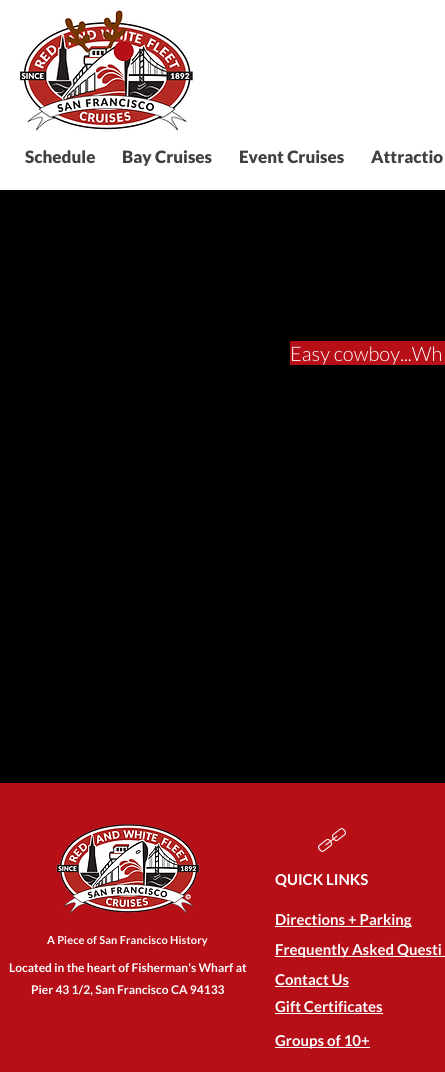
#include <cairo.h>
#include <math.h>
#include <stddef.h>

static cairo_t *ctx;

static void use_color(int r, int g, int b) {
    cairo_set_source_rgb(ctx, r / 255.0, g / 255.0, b / 255.0);
}

static void spaced_text(double x, double y, const char *s, double letter, double word) {
    cairo_move_to(ctx, x, y);
    while (*s) {
        char ch[5] = {0};
        int n = 0;
        do ch[n++] = *s++; while ((*s & 0xC0) == 0x80);
        cairo_show_text(ctx, ch);
        cairo_rel_move_to(ctx, letter + word * (*ch == ' '), 0);
    }
}

static void picture(const char *path, double x, double y, double w, double h) {
    cairo_surface_t *image = cairo_image_surface_create_from_png(path);
    cairo_save(ctx);
    cairo_set_source_surface(ctx, image, x, y);
    cairo_rectangle(ctx, x, y, w, h);
    cairo_fill(ctx);
    cairo_restore(ctx);
    cairo_surface_destroy(image);
}

int main(void) {
    cairo_surface_t *surface = cairo_image_surface_create(CAIRO_FORMAT_RGB24, 445, 1072);
    ctx = cairo_create(surface);
    cairo_font_options_t *options = cairo_font_options_create();
    cairo_font_options_set_hint_metrics(options, CAIRO_HINT_METRICS_OFF);
    cairo_font_options_set_hint_style(options, CAIRO_HINT_STYLE_NONE);
    cairo_set_font_options(ctx, options);
    cairo_set_miter_limit(ctx, 4);
    use_color(0, 0, 0);
    cairo_paint(ctx);
    use_color(255, 255, 255);
    cairo_rectangle(ctx, 0, 0, 445, 190);
    cairo_fill(ctx);
    picture("img1.png", 20, 8, 173, 124);
    cairo_select_font_face(ctx, "Lato Black", CAIRO_FONT_SLANT_NORMAL, CAIRO_FONT_WEIGHT_NORMAL);
    cairo_set_font_size(ctx, 17);
    use_color(64, 64, 64);
    cairo_move_to(ctx, 25, 163);
    cairo_show_text(ctx, "Schedule");
    cairo_move_to(ctx, 122, 163);
    cairo_show_text(ctx, "Bay Cruises");
    cairo_move_to(ctx, 239, 163);
    cairo_show_text(ctx, "Event Cruises");
    cairo_move_to(ctx, 371, 163);
    cairo_show_text(ctx, "Attractio");
    use_color(182, 15, 24);
    cairo_rectangle(ctx, 290, 341, 155, 24);
    cairo_fill(ctx);
    cairo_select_font_face(ctx, "Lato Light", CAIRO_FONT_SLANT_NORMAL, CAIRO_FONT_WEIGHT_NORMAL);
    cairo_set_font_size(ctx, 20);
    use_color(255, 255, 255);
    cairo_move_to(ctx, 290, 361);
    cairo_show_text(ctx, "Easy cowboy...Wh");
    use_color(182, 15, 24);
    cairo_rectangle(ctx, 0, 783, 445, 289);
    cairo_fill(ctx);
    picture("img2.png", 56, 824, 144, 90);
    picture("img3.png", 318, 828, 28, 24);
    cairo_select_font_face(ctx, "Lato", CAIRO_FONT_SLANT_NORMAL, CAIRO_FONT_WEIGHT_BOLD);
    cairo_set_font_size(ctx, 15);
    use_color(255, 255, 255);
    cairo_move_to(ctx, 275, 885);
    cairo_show_text(ctx, "QUICK LINKS");
    cairo_rectangle(ctx, 275, 926, 137, 1);
    cairo_fill(ctx);
    cairo_move_to(ctx, 275, 925);
    cairo_show_text(ctx, "Directions + Parking");
    cairo_set_font_size(ctx, 11);
    spaced_text(47, 944, "A Piece of San Francisco History", 0.1, 0);
    cairo_rectangle(ctx, 275, 956, 170, 1);
    cairo_fill(ctx);
    cairo_set_font_size(ctx, 15);
    cairo_move_to(ctx, 275, 955);
    cairo_show_text(ctx, "Frequently Asked Questi");
    cairo_set_font_size(ctx, 12);
    cairo_move_to(ctx, 9, 972);
    cairo_show_text(ctx, "Located in the heart of Fisherman's Wharf at");
    cairo_move_to(ctx, 31, 994);
    cairo_show_text(ctx, "Pier 43 1/2, San Francisco CA 94133");
    cairo_set_font_size(ctx, 15);
    cairo_move_to(ctx, 275, 985);
    cairo_show_text(ctx, "Contact Us");
    cairo_rectangle(ctx, 275, 986, 74, 1);
    cairo_fill(ctx);
    cairo_move_to(ctx, 275, 1012);
    cairo_show_text(ctx, "Gift Certificates");
    cairo_rectangle(ctx, 275, 1013, 108, 1);
    cairo_fill(ctx);
    cairo_rectangle(ctx, 275, 1047, 95, 1);
    cairo_fill(ctx);
    cairo_move_to(ctx, 275, 1046);
    cairo_show_text(ctx, "Groups of 10+");
    cairo_surface_write_to_png(surface, "result.png");
    cairo_font_options_destroy(options);
    cairo_destroy(ctx);
    cairo_surface_destroy(surface);
    return 0;
}
